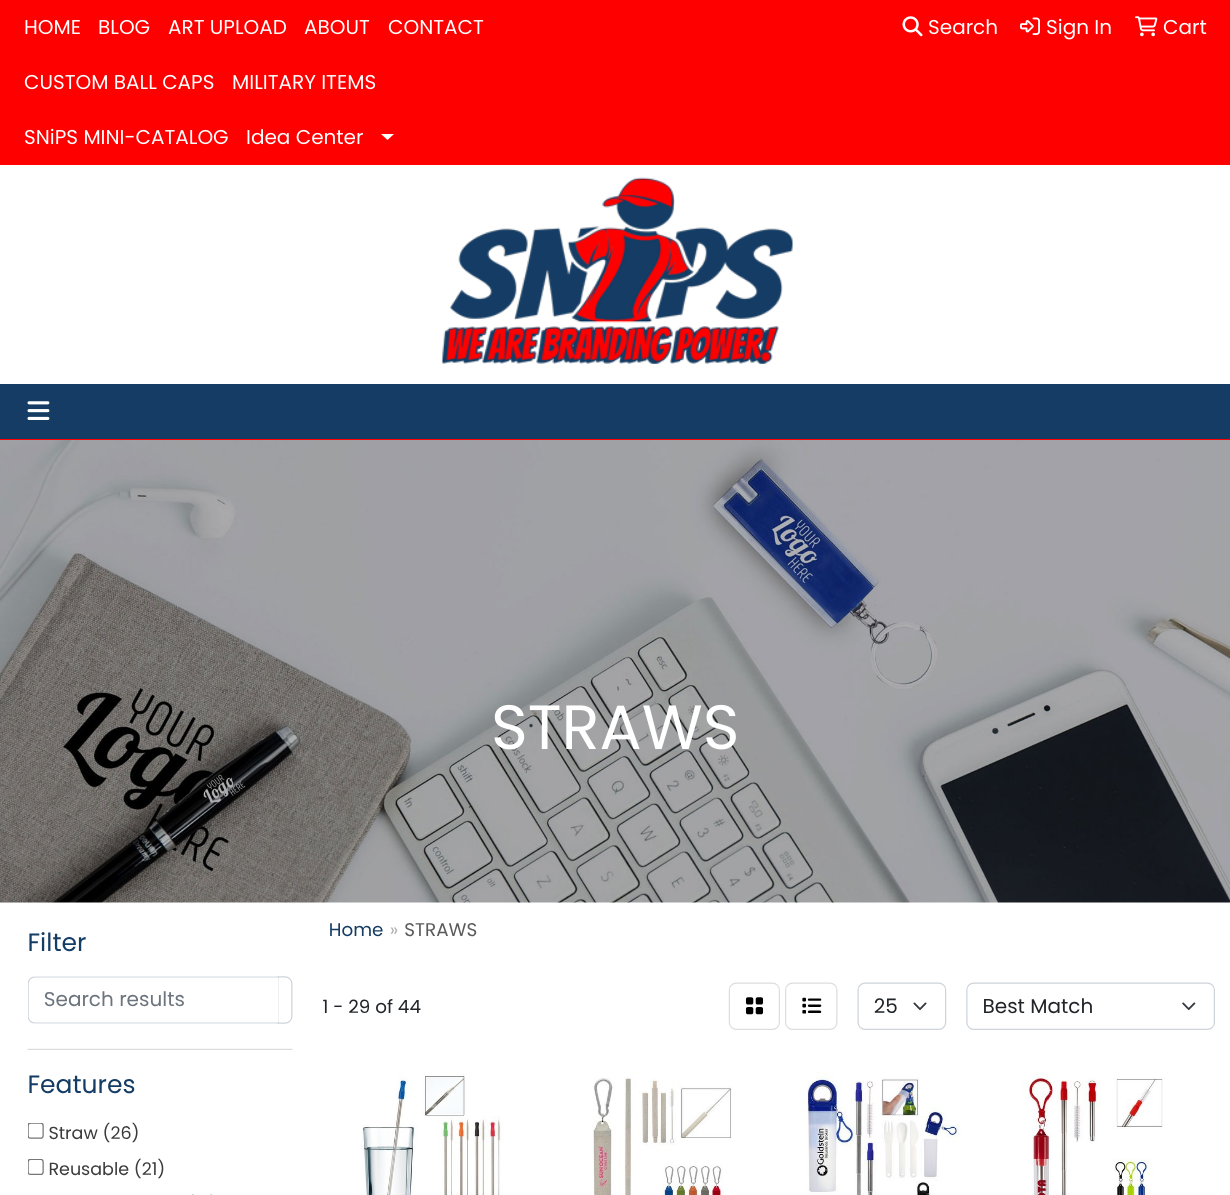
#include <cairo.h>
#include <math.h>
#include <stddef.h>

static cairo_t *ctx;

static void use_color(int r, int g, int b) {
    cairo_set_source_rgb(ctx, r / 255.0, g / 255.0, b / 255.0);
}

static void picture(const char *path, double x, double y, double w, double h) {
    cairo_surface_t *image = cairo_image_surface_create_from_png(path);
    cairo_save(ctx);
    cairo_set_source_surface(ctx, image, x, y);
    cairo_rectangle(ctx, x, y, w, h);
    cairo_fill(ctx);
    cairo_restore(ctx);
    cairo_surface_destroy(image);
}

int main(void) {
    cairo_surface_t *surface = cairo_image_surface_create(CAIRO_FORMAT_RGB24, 1230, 1195);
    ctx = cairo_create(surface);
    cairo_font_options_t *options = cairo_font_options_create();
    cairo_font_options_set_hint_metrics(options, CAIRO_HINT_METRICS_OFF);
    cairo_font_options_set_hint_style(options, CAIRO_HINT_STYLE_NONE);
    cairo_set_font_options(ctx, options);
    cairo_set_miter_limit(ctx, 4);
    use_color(255, 255, 255);
    cairo_paint(ctx);
    use_color(255, 0, 0);
    cairo_rectangle(ctx, 0, 0, 1230, 165);
    cairo_fill(ctx);
    cairo_select_font_face(ctx, "Poppins", CAIRO_FONT_SLANT_NORMAL, CAIRO_FONT_WEIGHT_NORMAL);
    cairo_set_font_size(ctx, 20);
    use_color(255, 255, 255);
    cairo_move_to(ctx, 24, 34);
    cairo_show_text(ctx, "HOME");
    cairo_move_to(ctx, 98, 34);
    cairo_show_text(ctx, "BLOG");
    cairo_move_to(ctx, 168, 34);
    cairo_show_text(ctx, "ART UPLOAD");
    cairo_move_to(ctx, 304, 34);
    cairo_show_text(ctx, "ABOUT");
    cairo_move_to(ctx, 388, 34);
    cairo_show_text(ctx, "CONTACT");
    cairo_move_to(ctx, 24, 89);
    cairo_show_text(ctx, "CUSTOM BALL CAPS");
    cairo_move_to(ctx, 232, 89);
    cairo_show_text(ctx, "MILITARY ITEMS");
    cairo_move_to(ctx, 24, 144);
    cairo_show_text(ctx, "SNiPS MINI-CATALOG");
    cairo_move_to(ctx, 246, 144);
    cairo_show_text(ctx, "Idea Center");
    cairo_new_path(ctx);
    cairo_move_to(ctx, 381, 134);
    cairo_line_to(ctx, 394, 134);
    cairo_line_to(ctx, 387.5, 140);
    cairo_close_path(ctx);
    cairo_fill(ctx);
    picture("img1.png", 902, 16, 21, 21);
    cairo_move_to(ctx, 928, 34);
    cairo_show_text(ctx, "Search");
    picture("img2.png", 1020, 17, 20, 18);
    cairo_move_to(ctx, 1046, 34);
    cairo_show_text(ctx, "Sign In");
    picture("img3.png", 1135, 16, 23, 21);
    cairo_move_to(ctx, 1163, 34);
    cairo_show_text(ctx, "Cart");
    picture("img4.png", 441, 177, 352, 188);
    use_color(20, 60, 100);
    cairo_rectangle(ctx, 0, 384, 1230, 55);
    cairo_fill(ctx);
    use_color(255, 0, 0);
    cairo_rectangle(ctx, 0, 439, 1230, 1);
    cairo_fill(ctx);
    picture("img5.png", 27, 401, 23, 19);
    picture("img6.png", 0, 440, 1230, 463);
    cairo_set_font_size(ctx, 62.5);
    use_color(255, 255, 255);
    cairo_move_to(ctx, 491, 749);
    cairo_show_text(ctx, "STRAWS");
    picture("img7.png", 27, 923, 1188, 272);
    cairo_surface_write_to_png(surface, "result.png");
    cairo_font_options_destroy(options);
    cairo_destroy(ctx);
    cairo_surface_destroy(surface);
    return 0;
}
